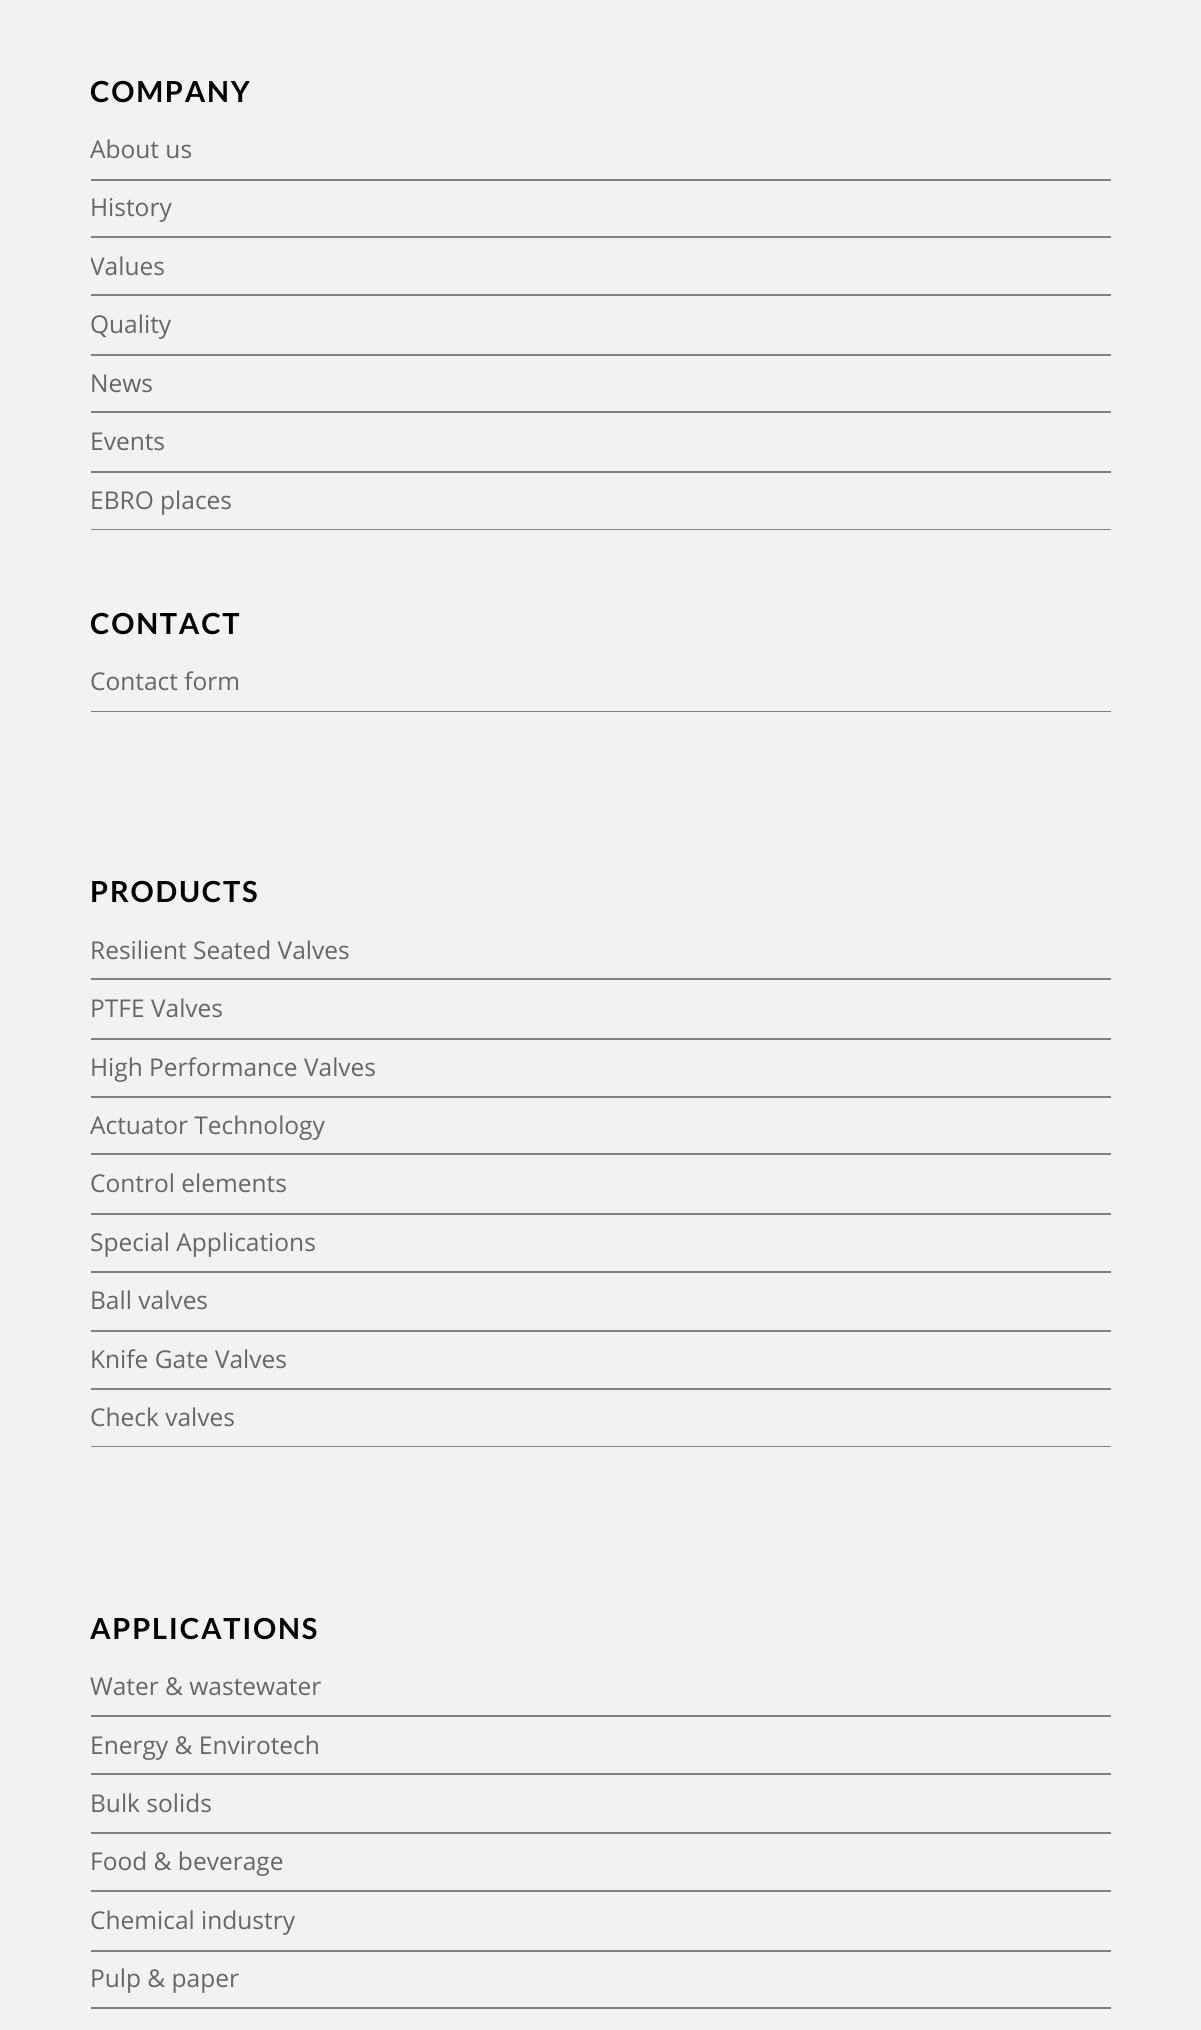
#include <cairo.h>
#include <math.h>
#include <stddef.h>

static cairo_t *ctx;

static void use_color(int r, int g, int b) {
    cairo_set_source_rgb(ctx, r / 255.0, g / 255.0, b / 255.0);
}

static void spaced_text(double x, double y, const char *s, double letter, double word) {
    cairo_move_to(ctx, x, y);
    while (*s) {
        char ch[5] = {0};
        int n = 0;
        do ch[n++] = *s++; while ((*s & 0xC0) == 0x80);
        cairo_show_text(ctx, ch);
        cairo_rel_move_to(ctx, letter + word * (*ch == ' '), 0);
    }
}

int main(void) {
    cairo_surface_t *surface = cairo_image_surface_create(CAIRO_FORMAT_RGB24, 1201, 2030);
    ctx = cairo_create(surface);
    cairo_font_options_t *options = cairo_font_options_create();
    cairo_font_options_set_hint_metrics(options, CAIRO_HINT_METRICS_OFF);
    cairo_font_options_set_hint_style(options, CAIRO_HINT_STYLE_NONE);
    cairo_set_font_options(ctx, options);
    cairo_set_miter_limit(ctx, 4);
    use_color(242, 242, 242);
    cairo_paint(ctx);
    cairo_select_font_face(ctx, "Lato", CAIRO_FONT_SLANT_NORMAL, CAIRO_FONT_WEIGHT_BOLD);
    cairo_set_font_size(ctx, 29);
    use_color(0, 0, 0);
    spaced_text(90, 102, "COMPANY", 1.75, 0);
    use_color(128, 128, 128);
    cairo_rectangle(ctx, 91, 179, 1020, 2);
    cairo_fill(ctx);
    cairo_select_font_face(ctx, "Open Sans", CAIRO_FONT_SLANT_NORMAL, CAIRO_FONT_WEIGHT_NORMAL);
    cairo_set_font_size(ctx, 24.5);
    use_color(102, 102, 102);
    cairo_move_to(ctx, 90, 158);
    cairo_show_text(ctx, "About us");
    use_color(128, 128, 128);
    cairo_rectangle(ctx, 91, 236, 1020, 2);
    cairo_fill(ctx);
    use_color(102, 102, 102);
    cairo_move_to(ctx, 90, 216);
    cairo_show_text(ctx, "History");
    use_color(128, 128, 128);
    cairo_rectangle(ctx, 91, 294, 1020, 2);
    cairo_fill(ctx);
    cairo_save(ctx);
    cairo_rectangle(ctx, 91, 51, 1020, 479);
    cairo_clip(ctx);
    use_color(102, 102, 102);
    cairo_move_to(ctx, 90, 275);
    cairo_show_text(ctx, "Values");
    cairo_restore(ctx);
    cairo_rectangle(ctx, 91, 354, 1020, 2);
    cairo_fill(ctx);
    use_color(102, 102, 102);
    cairo_move_to(ctx, 90, 333);
    cairo_show_text(ctx, "Quality");
    use_color(128, 128, 128);
    cairo_rectangle(ctx, 91, 411, 1020, 2);
    cairo_fill(ctx);
    use_color(102, 102, 102);
    cairo_move_to(ctx, 90, 392);
    cairo_show_text(ctx, "News");
    use_color(128, 128, 128);
    cairo_rectangle(ctx, 91, 471, 1020, 2);
    cairo_fill(ctx);
    use_color(102, 102, 102);
    cairo_move_to(ctx, 90, 450);
    cairo_show_text(ctx, "Events");
    use_color(128, 128, 128);
    cairo_rectangle(ctx, 91, 529, 1020, 1);
    cairo_fill(ctx);
    use_color(102, 102, 102);
    cairo_move_to(ctx, 90, 509);
    cairo_show_text(ctx, "EBRO places");
    cairo_select_font_face(ctx, "Lato", CAIRO_FONT_SLANT_NORMAL, CAIRO_FONT_WEIGHT_BOLD);
    cairo_set_font_size(ctx, 29);
    use_color(0, 0, 0);
    spaced_text(90, 634, "CONTACT", 1.75, 0);
    use_color(128, 128, 128);
    cairo_rectangle(ctx, 91, 711, 1020, 1);
    cairo_fill(ctx);
    cairo_select_font_face(ctx, "Open Sans", CAIRO_FONT_SLANT_NORMAL, CAIRO_FONT_WEIGHT_NORMAL);
    cairo_set_font_size(ctx, 24.5);
    use_color(102, 102, 102);
    cairo_move_to(ctx, 90, 690);
    cairo_show_text(ctx, "Contact form");
    cairo_select_font_face(ctx, "Lato", CAIRO_FONT_SLANT_NORMAL, CAIRO_FONT_WEIGHT_BOLD);
    cairo_set_font_size(ctx, 29);
    use_color(0, 0, 0);
    spaced_text(90, 902, "PRODUCTS", 1.75, 0);
    use_color(128, 128, 128);
    cairo_rectangle(ctx, 91, 978, 1020, 2);
    cairo_fill(ctx);
    cairo_select_font_face(ctx, "Open Sans", CAIRO_FONT_SLANT_NORMAL, CAIRO_FONT_WEIGHT_NORMAL);
    cairo_set_font_size(ctx, 24.5);
    use_color(102, 102, 102);
    cairo_move_to(ctx, 90, 959);
    cairo_show_text(ctx, "Resilient Seated Valves");
    use_color(128, 128, 128);
    cairo_rectangle(ctx, 91, 1038, 1020, 2);
    cairo_fill(ctx);
    use_color(102, 102, 102);
    cairo_move_to(ctx, 90, 1017);
    cairo_show_text(ctx, "PTFE Valves");
    use_color(128, 128, 128);
    cairo_rectangle(ctx, 91, 1096, 1020, 2);
    cairo_fill(ctx);
    use_color(102, 102, 102);
    cairo_move_to(ctx, 90, 1076);
    cairo_show_text(ctx, "High Performance Valves");
    use_color(128, 128, 128);
    cairo_rectangle(ctx, 91, 1153, 1020, 2);
    cairo_fill(ctx);
    use_color(102, 102, 102);
    cairo_move_to(ctx, 90, 1134);
    cairo_show_text(ctx, "Actuator Technology");
    use_color(128, 128, 128);
    cairo_rectangle(ctx, 91, 1213, 1020, 2);
    cairo_fill(ctx);
    use_color(102, 102, 102);
    cairo_move_to(ctx, 90, 1192);
    cairo_show_text(ctx, "Control elements");
    use_color(128, 128, 128);
    cairo_rectangle(ctx, 91, 1271, 1020, 2);
    cairo_fill(ctx);
    use_color(102, 102, 102);
    cairo_move_to(ctx, 90, 1251);
    cairo_show_text(ctx, "Special Applications");
    use_color(128, 128, 128);
    cairo_rectangle(ctx, 91, 1330, 1020, 2);
    cairo_fill(ctx);
    use_color(102, 102, 102);
    cairo_move_to(ctx, 90, 1309);
    cairo_show_text(ctx, "Ball valves");
    use_color(128, 128, 128);
    cairo_rectangle(ctx, 91, 1388, 1020, 2);
    cairo_fill(ctx);
    use_color(102, 102, 102);
    cairo_move_to(ctx, 90, 1368);
    cairo_show_text(ctx, "Knife Gate Valves");
    use_color(128, 128, 128);
    cairo_rectangle(ctx, 91, 1446, 1020, 1);
    cairo_fill(ctx);
    use_color(102, 102, 102);
    cairo_move_to(ctx, 90, 1426);
    cairo_show_text(ctx, "Check valves");
    cairo_select_font_face(ctx, "Lato", CAIRO_FONT_SLANT_NORMAL, CAIRO_FONT_WEIGHT_BOLD);
    cairo_set_font_size(ctx, 29);
    use_color(0, 0, 0);
    spaced_text(90, 1639, "APPLICATIONS", 1.75, 0);
    use_color(128, 128, 128);
    cairo_rectangle(ctx, 91, 1715, 1020, 2);
    cairo_fill(ctx);
    cairo_select_font_face(ctx, "Open Sans", CAIRO_FONT_SLANT_NORMAL, CAIRO_FONT_WEIGHT_NORMAL);
    cairo_set_font_size(ctx, 24.5);
    use_color(102, 102, 102);
    cairo_move_to(ctx, 90, 1695);
    cairo_show_text(ctx, "Water & wastewater");
    use_color(128, 128, 128);
    cairo_rectangle(ctx, 91, 1773, 1020, 2);
    cairo_fill(ctx);
    use_color(102, 102, 102);
    cairo_move_to(ctx, 90, 1754);
    cairo_show_text(ctx, "Energy & Envirotech");
    use_color(128, 128, 128);
    cairo_rectangle(ctx, 91, 1832, 1020, 2);
    cairo_fill(ctx);
    use_color(102, 102, 102);
    cairo_move_to(ctx, 90, 1812);
    cairo_show_text(ctx, "Bulk solids");
    use_color(128, 128, 128);
    cairo_rectangle(ctx, 91, 1890, 1020, 2);
    cairo_fill(ctx);
    use_color(102, 102, 102);
    cairo_move_to(ctx, 90, 1870);
    cairo_show_text(ctx, "Food & beverage");
    use_color(128, 128, 128);
    cairo_rectangle(ctx, 91, 1950, 1020, 2);
    cairo_fill(ctx);
    use_color(102, 102, 102);
    cairo_move_to(ctx, 90, 1929);
    cairo_show_text(ctx, "Chemical industry");
    use_color(128, 128, 128);
    cairo_rectangle(ctx, 91, 2007, 1020, 2);
    cairo_fill(ctx);
    use_color(102, 102, 102);
    cairo_move_to(ctx, 90, 1987);
    cairo_show_text(ctx, "Pulp & paper");
    cairo_surface_write_to_png(surface, "result.png");
    cairo_font_options_destroy(options);
    cairo_destroy(ctx);
    cairo_surface_destroy(surface);
    return 0;
}
